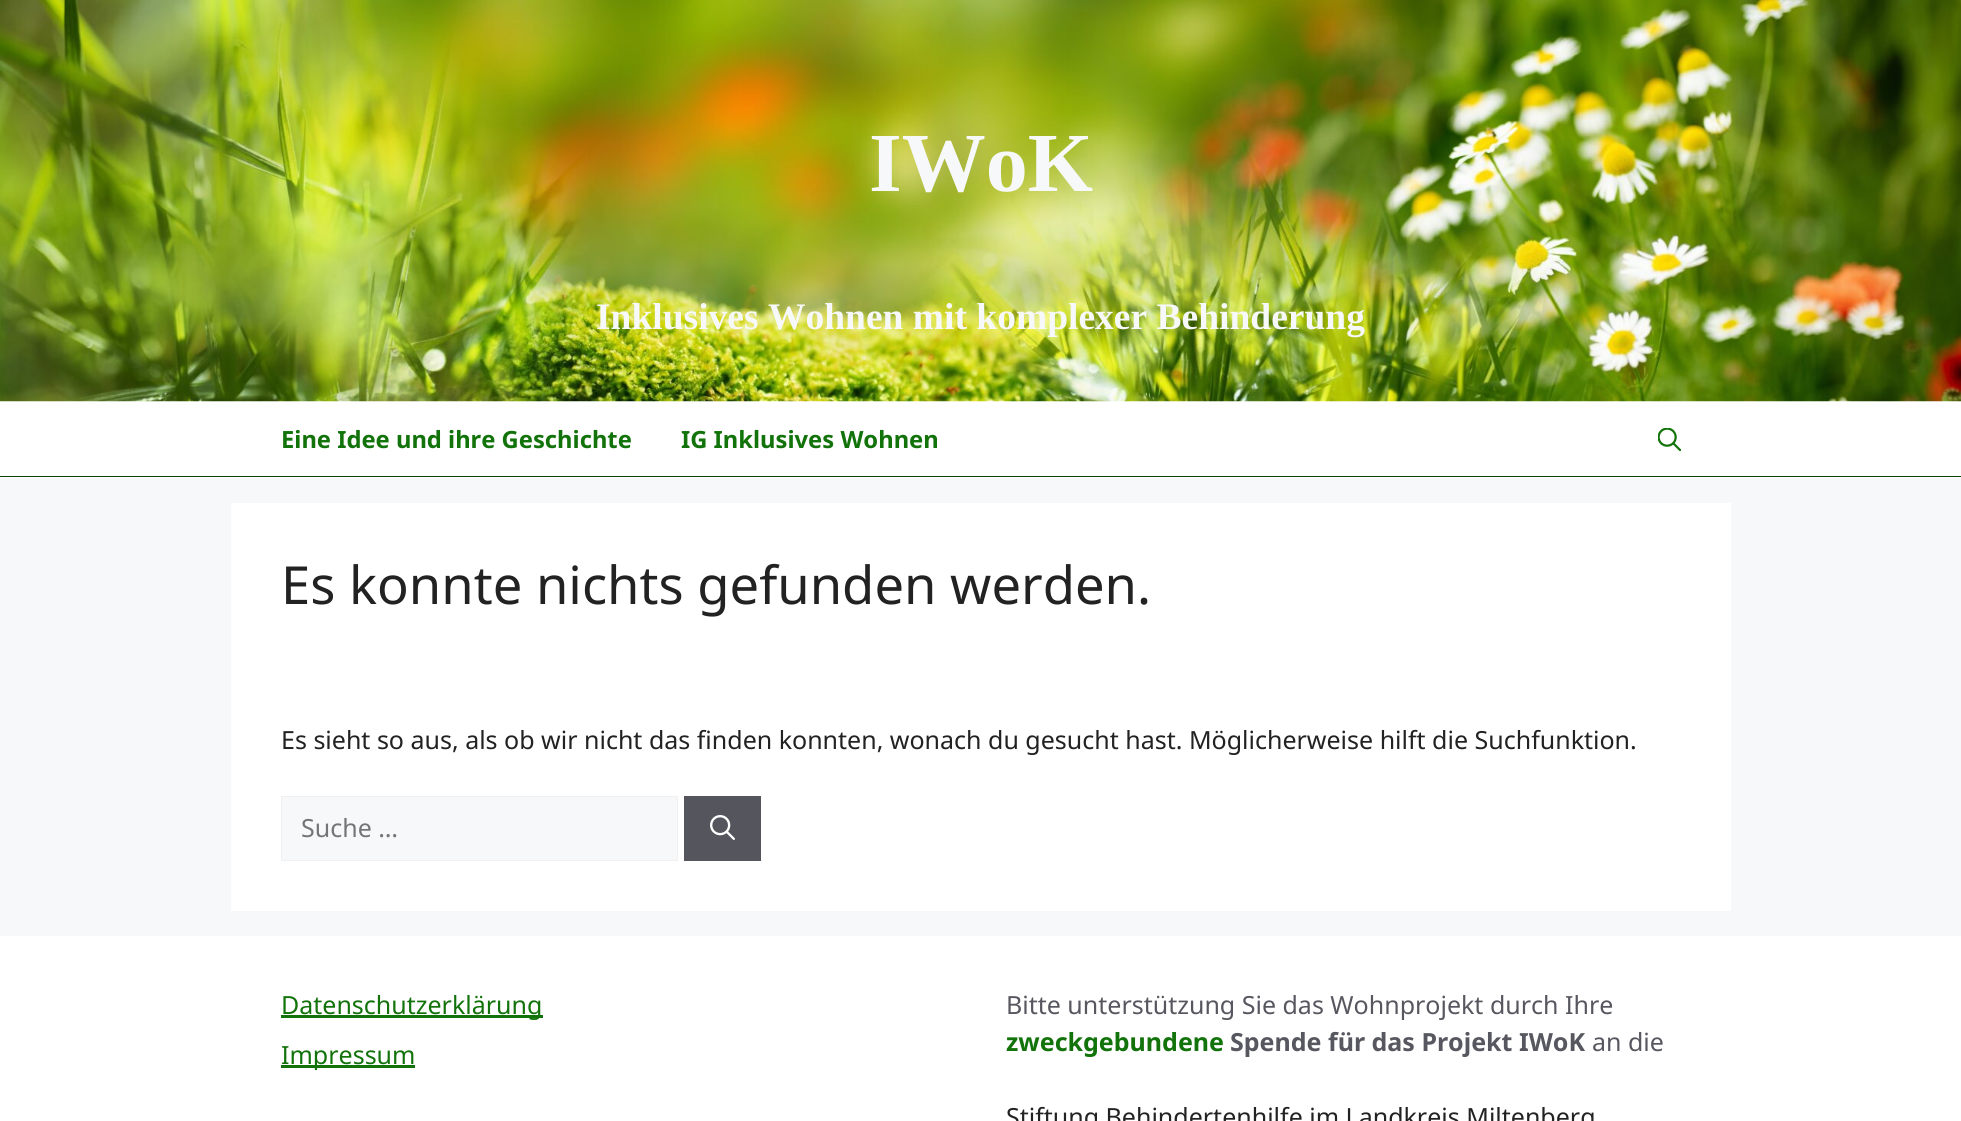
#include <cairo.h>
#include <math.h>
#include <stddef.h>

static cairo_t *ctx;

static void use_color(int r, int g, int b) {
    cairo_set_source_rgb(ctx, r / 255.0, g / 255.0, b / 255.0);
}

static void picture(const char *path, double x, double y, double w, double h) {
    cairo_surface_t *image = cairo_image_surface_create_from_png(path);
    cairo_save(ctx);
    cairo_set_source_surface(ctx, image, x, y);
    cairo_rectangle(ctx, x, y, w, h);
    cairo_fill(ctx);
    cairo_restore(ctx);
    cairo_surface_destroy(image);
}

int main(void) {
    cairo_surface_t *surface = cairo_image_surface_create(CAIRO_FORMAT_RGB24, 1961, 1121);
    ctx = cairo_create(surface);
    cairo_font_options_t *options = cairo_font_options_create();
    cairo_font_options_set_hint_metrics(options, CAIRO_HINT_METRICS_OFF);
    cairo_font_options_set_hint_style(options, CAIRO_HINT_STYLE_NONE);
    cairo_set_font_options(ctx, options);
    cairo_set_miter_limit(ctx, 4);
    use_color(247, 248, 249);
    cairo_paint(ctx);
    use_color(255, 255, 255);
    cairo_rectangle(ctx, 0, 401, 1961, 77);
    cairo_fill(ctx);
    picture("img1.png", 0, 0, 1961, 402);
    cairo_select_font_face(ctx, "Liberation Serif", CAIRO_FONT_SLANT_NORMAL, CAIRO_FONT_WEIGHT_BOLD);
    cairo_set_font_size(ctx, 84);
    use_color(247, 248, 249);
    cairo_move_to(ctx, 869, 191);
    cairo_show_text(ctx, "IWoK");
    cairo_set_font_size(ctx, 37.5);
    cairo_move_to(ctx, 596, 329);
    cairo_show_text(ctx, "Inklusives Wohnen mit komplexer Behinderung");
    use_color(8, 64, 5);
    cairo_rectangle(ctx, 0, 476, 1961, 1);
    cairo_fill(ctx);
    cairo_select_font_face(ctx, "Noto Sans", CAIRO_FONT_SLANT_NORMAL, CAIRO_FONT_WEIGHT_BOLD);
    cairo_set_font_size(ctx, 23.75);
    use_color(18, 115, 11);
    cairo_move_to(ctx, 281, 448);
    cairo_show_text(ctx, "Eine Idee und ihre Geschichte");
    cairo_move_to(ctx, 681, 448);
    cairo_show_text(ctx, "IG Inklusives Wohnen");
    picture("img2.png", 1658, 428, 23, 23);
    use_color(255, 255, 255);
    cairo_rectangle(ctx, 231, 503, 1500, 408);
    cairo_fill(ctx);
    cairo_select_font_face(ctx, "Noto Sans", CAIRO_FONT_SLANT_NORMAL, CAIRO_FONT_WEIGHT_NORMAL);
    cairo_set_font_size(ctx, 52.5);
    use_color(34, 34, 34);
    cairo_move_to(ctx, 281, 604);
    cairo_show_text(ctx, "Es konnte nichts gefunden werden.");
    cairo_set_font_size(ctx, 25);
    cairo_move_to(ctx, 281, 749);
    cairo_show_text(ctx, "Es sieht so aus, als ob wir nicht das finden konnten, wonach du gesucht hast. Möglicherweise hilft die Suchfunktion.");
    use_color(247, 248, 249);
    cairo_rectangle(ctx, 281.5, 796.5, 396, 64);
    cairo_fill_preserve(ctx);
    use_color(240, 240, 240);
    cairo_set_line_width(ctx, 1);
    cairo_stroke(ctx);
    use_color(117, 117, 117);
    cairo_move_to(ctx, 301, 837);
    cairo_show_text(ctx, "Suche …");
    use_color(85, 85, 94);
    cairo_rectangle(ctx, 684, 796, 77, 65);
    cairo_fill(ctx);
    picture("img3.png", 710, 815, 25, 25);
    use_color(255, 255, 255);
    cairo_rectangle(ctx, 0, 936, 1961, 185);
    cairo_fill(ctx);
    use_color(18, 115, 11);
    cairo_rectangle(ctx, 281, 1015, 262, 3);
    cairo_fill(ctx);
    cairo_move_to(ctx, 281, 1014);
    cairo_show_text(ctx, "Datenschutzerklärung");
    cairo_rectangle(ctx, 281, 1065, 134, 3);
    cairo_fill(ctx);
    cairo_move_to(ctx, 281, 1064);
    cairo_show_text(ctx, "Impressum");
    use_color(87, 87, 96);
    cairo_move_to(ctx, 1006, 1014);
    cairo_show_text(ctx, "Bitte unterstützung Sie das Wohnprojekt durch Ihre");
    cairo_select_font_face(ctx, "Noto Sans", CAIRO_FONT_SLANT_NORMAL, CAIRO_FONT_WEIGHT_BOLD);
    use_color(18, 115, 11);
    cairo_move_to(ctx, 1006, 1051);
    cairo_show_text(ctx, "zweckgebundene");
    use_color(87, 87, 96);
    cairo_move_to(ctx, 1230, 1051);
    cairo_show_text(ctx, "Spende für das Projekt IWoK");
    cairo_select_font_face(ctx, "Noto Sans", CAIRO_FONT_SLANT_NORMAL, CAIRO_FONT_WEIGHT_NORMAL);
    cairo_move_to(ctx, 1592, 1051);
    cairo_show_text(ctx, "an die");
    use_color(34, 34, 34);
    cairo_move_to(ctx, 1006, 1126);
    cairo_show_text(ctx, "Stiftung Behindertenhilfe im Landkreis Miltenberg");
    cairo_surface_write_to_png(surface, "result.png");
    cairo_font_options_destroy(options);
    cairo_destroy(ctx);
    cairo_surface_destroy(surface);
    return 0;
}
